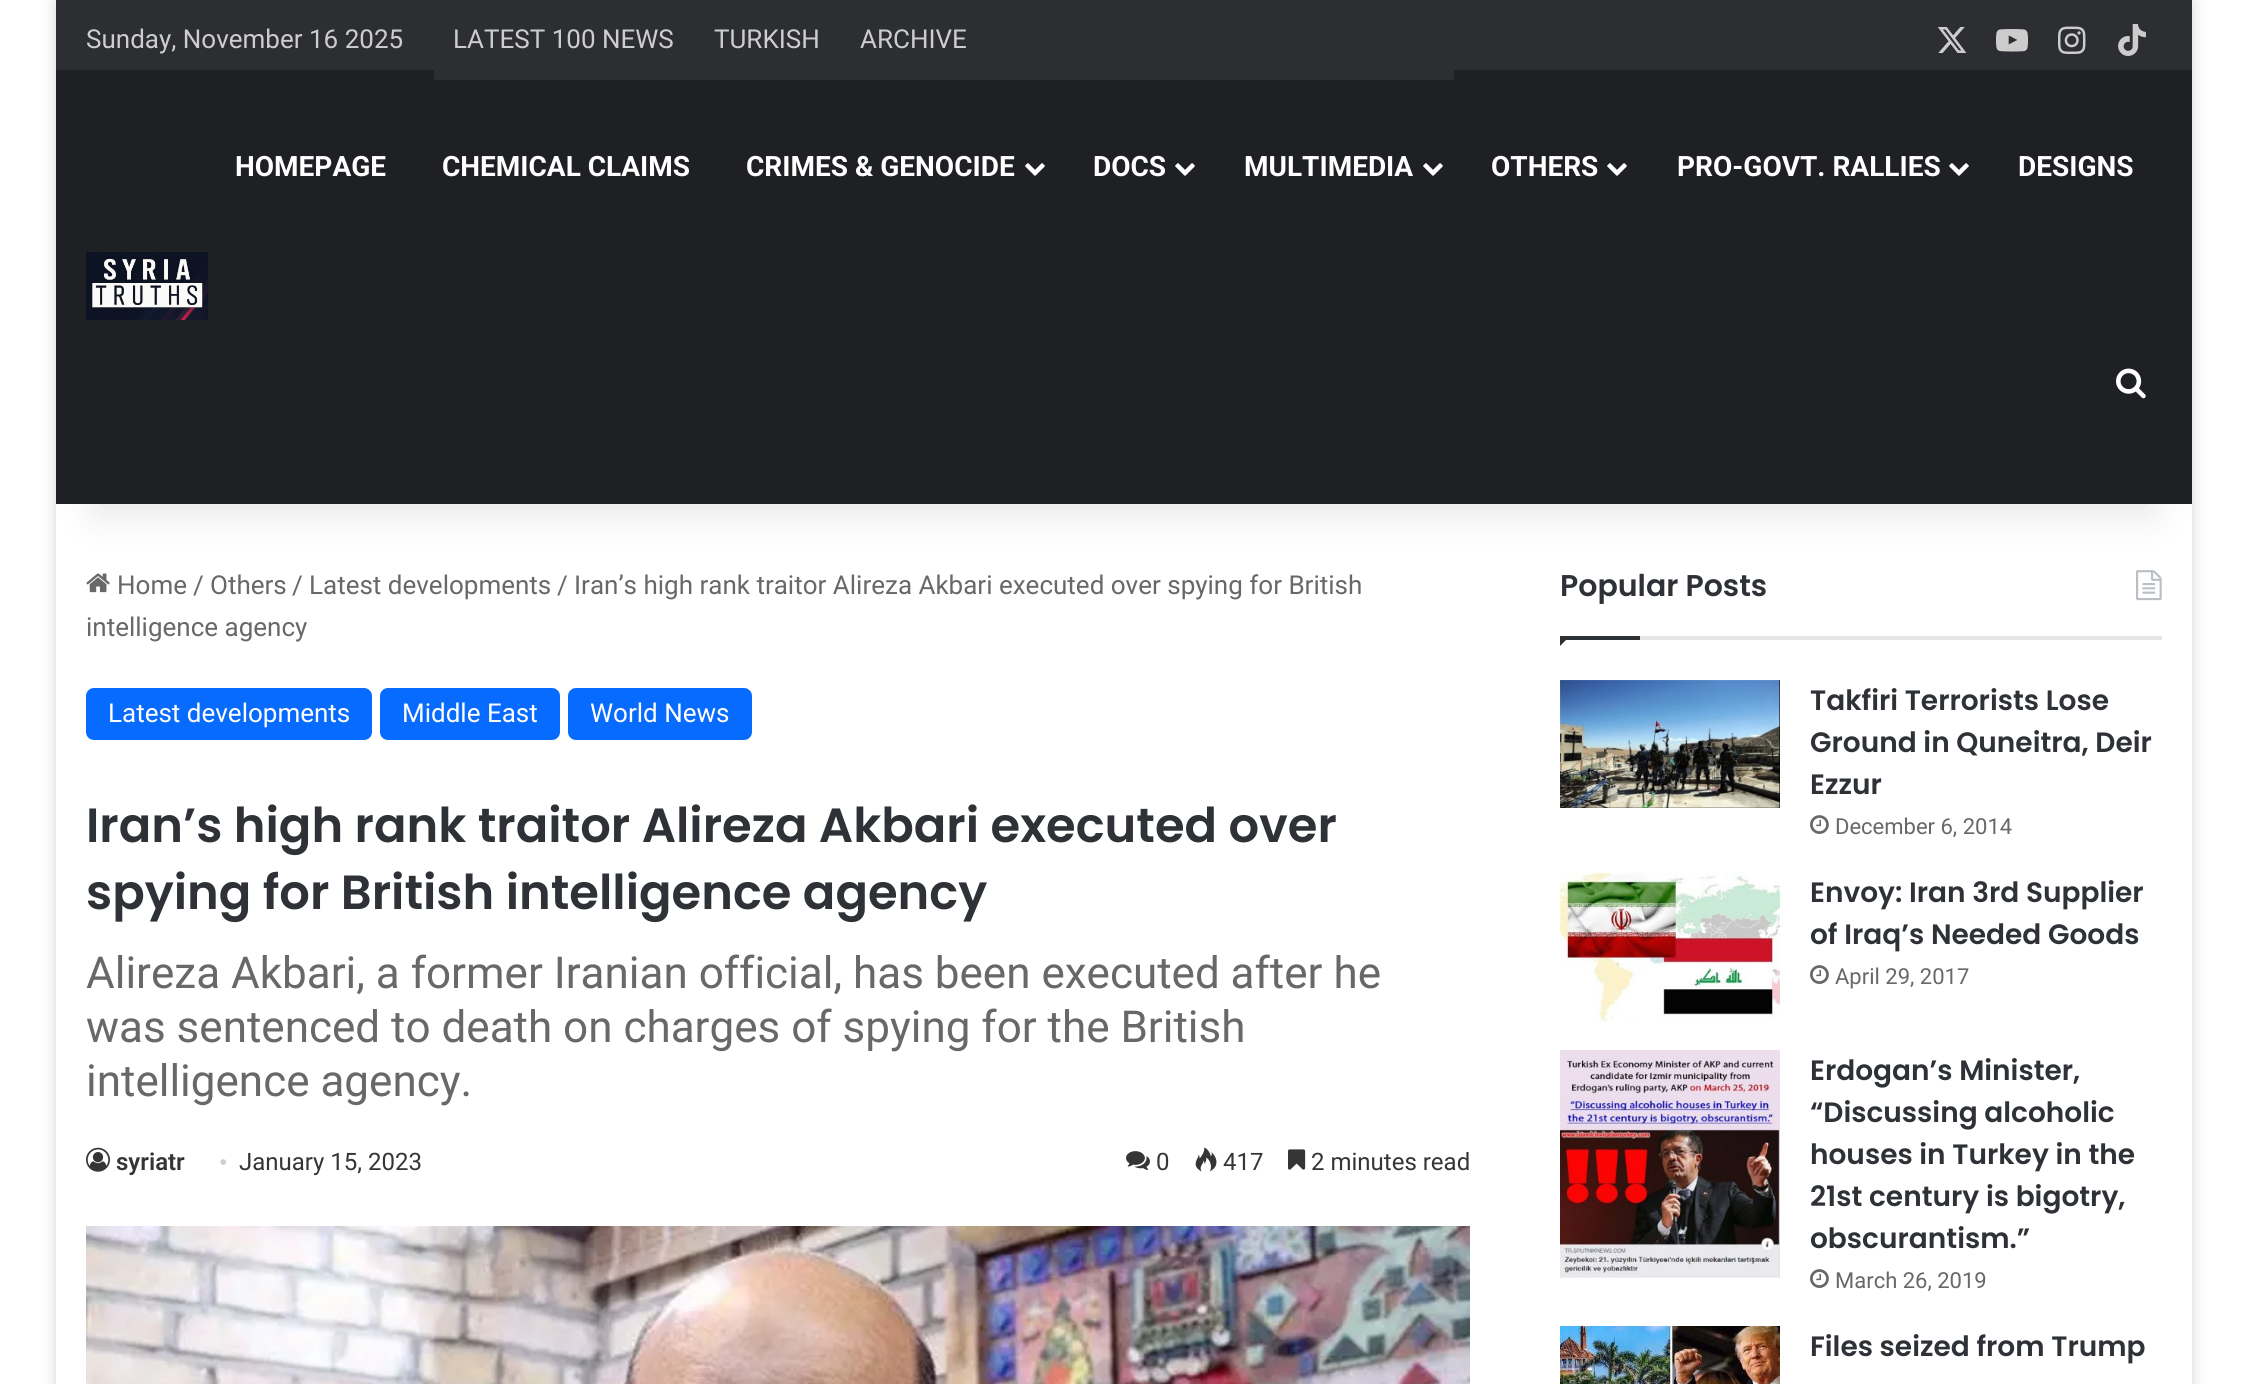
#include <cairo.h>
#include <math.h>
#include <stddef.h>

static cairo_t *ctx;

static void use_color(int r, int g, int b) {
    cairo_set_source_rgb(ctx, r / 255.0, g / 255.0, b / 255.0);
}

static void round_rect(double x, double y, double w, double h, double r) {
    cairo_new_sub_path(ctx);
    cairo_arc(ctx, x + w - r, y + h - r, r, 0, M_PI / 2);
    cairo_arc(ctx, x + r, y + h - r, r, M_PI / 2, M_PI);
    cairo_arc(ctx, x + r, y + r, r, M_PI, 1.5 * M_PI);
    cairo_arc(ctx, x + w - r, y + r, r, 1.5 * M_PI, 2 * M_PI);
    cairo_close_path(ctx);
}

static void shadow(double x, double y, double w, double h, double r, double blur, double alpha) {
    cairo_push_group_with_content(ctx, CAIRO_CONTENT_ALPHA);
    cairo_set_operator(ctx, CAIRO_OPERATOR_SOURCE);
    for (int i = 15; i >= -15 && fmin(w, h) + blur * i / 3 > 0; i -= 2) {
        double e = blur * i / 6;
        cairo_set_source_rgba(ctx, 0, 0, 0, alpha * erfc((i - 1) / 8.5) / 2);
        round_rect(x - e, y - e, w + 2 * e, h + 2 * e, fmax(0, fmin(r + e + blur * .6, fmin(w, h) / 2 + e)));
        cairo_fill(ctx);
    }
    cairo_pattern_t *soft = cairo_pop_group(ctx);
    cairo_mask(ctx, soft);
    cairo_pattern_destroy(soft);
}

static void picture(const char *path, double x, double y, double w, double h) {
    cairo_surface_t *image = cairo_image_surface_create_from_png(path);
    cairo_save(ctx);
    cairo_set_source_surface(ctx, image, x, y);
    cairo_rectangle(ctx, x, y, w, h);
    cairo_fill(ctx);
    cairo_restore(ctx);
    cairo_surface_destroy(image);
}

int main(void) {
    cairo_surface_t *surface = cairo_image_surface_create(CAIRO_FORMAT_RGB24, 2247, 1384);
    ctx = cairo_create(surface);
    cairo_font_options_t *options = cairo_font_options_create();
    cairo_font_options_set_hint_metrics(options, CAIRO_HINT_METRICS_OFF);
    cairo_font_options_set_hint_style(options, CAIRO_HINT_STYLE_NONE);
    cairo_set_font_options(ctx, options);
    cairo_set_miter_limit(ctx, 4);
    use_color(255, 255, 255);
    cairo_paint(ctx);
    cairo_save(ctx);
    cairo_set_fill_rule(ctx, CAIRO_FILL_RULE_EVEN_ODD);
    cairo_new_path(ctx);
    cairo_move_to(ctx, 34, 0);
    cairo_line_to(ctx, 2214, 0);
    cairo_line_to(ctx, 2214, 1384);
    cairo_line_to(ctx, 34, 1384);
    cairo_close_path(ctx);
    cairo_move_to(ctx, 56, 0);
    cairo_line_to(ctx, 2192, 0);
    cairo_line_to(ctx, 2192, 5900);
    cairo_line_to(ctx, 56, 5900);
    cairo_close_path(ctx);
    cairo_clip(ctx);
    use_color(171, 171, 171);
    shadow(56, 2, 2136, 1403, 0, 7, 0.5);
    cairo_restore(ctx);
    picture("img8.png", 86, 573, 24, 20);
    picture("img14.png", 2136, 570, 26, 31);
    use_color(0, 0, 0);
    shadow(96, 90, 2056, 424, 0, 20, 0.1);
    use_color(44, 46, 50);
    cairo_rectangle(ctx, 56, 0, 2136, 70);
    cairo_fill(ctx);
    cairo_select_font_face(ctx, "Roboto", CAIRO_FONT_SLANT_NORMAL, CAIRO_FONT_WEIGHT_NORMAL);
    cairo_set_font_size(ctx, 26);
    use_color(205, 205, 205);
    cairo_move_to(ctx, 86, 48);
    cairo_show_text(ctx, "Sunday, November 16 2025");
    use_color(31, 32, 36);
    cairo_rectangle(ctx, 56, 70, 2136, 434);
    cairo_fill(ctx);
    use_color(44, 46, 50);
    cairo_rectangle(ctx, 434, 70, 1020, 10);
    cairo_fill(ctx);
    use_color(205, 205, 205);
    cairo_move_to(ctx, 453, 48);
    cairo_show_text(ctx, "LATEST 100 NEWS");
    cairo_move_to(ctx, 714, 48);
    cairo_show_text(ctx, "TURKISH");
    cairo_move_to(ctx, 860, 48);
    cairo_show_text(ctx, "ARCHIVE");
    picture("img1.png", 1937, 27, 30, 26);
    picture("img2.png", 1996, 29, 32, 23);
    picture("img3.png", 2058, 26, 28, 28);
    picture("img4.png", 2118, 24, 28, 32);
    cairo_select_font_face(ctx, "Roboto", CAIRO_FONT_SLANT_NORMAL, CAIRO_FONT_WEIGHT_BOLD);
    cairo_set_font_size(ctx, 28);
    use_color(255, 255, 255);
    cairo_move_to(ctx, 235, 176);
    cairo_show_text(ctx, "HOMEPAGE");
    cairo_move_to(ctx, 442, 176);
    cairo_show_text(ctx, "CHEMICAL CLAIMS");
    cairo_move_to(ctx, 746, 176);
    cairo_show_text(ctx, "CRIMES & GENOCIDE");
    picture("img5.png", 1025, 163, 20, 13);
    cairo_move_to(ctx, 1093, 176);
    cairo_show_text(ctx, "DOCS");
    picture("img5.png", 1175, 163, 20, 13);
    cairo_move_to(ctx, 1244, 176);
    cairo_show_text(ctx, "MULTIMEDIA");
    picture("img5.png", 1423, 163, 20, 13);
    cairo_move_to(ctx, 1491, 176);
    cairo_show_text(ctx, "OTHERS");
    picture("img5.png", 1607, 163, 20, 13);
    cairo_move_to(ctx, 1677, 176);
    cairo_show_text(ctx, "PRO-GOVT. RALLIES");
    picture("img5.png", 1949, 163, 20, 13);
    cairo_move_to(ctx, 2018, 176);
    cairo_show_text(ctx, "DESIGNS");
    picture("img6.png", 2116, 368, 30, 31);
    picture("img7.png", 86, 252, 122, 68);
    cairo_select_font_face(ctx, "Roboto", CAIRO_FONT_SLANT_NORMAL, CAIRO_FONT_WEIGHT_NORMAL);
    cairo_set_font_size(ctx, 26);
    use_color(104, 104, 104);
    cairo_move_to(ctx, 117, 594);
    cairo_show_text(ctx, "Home");
    cairo_move_to(ctx, 193, 594);
    cairo_show_text(ctx, "/");
    cairo_move_to(ctx, 210, 594);
    cairo_show_text(ctx, "Others");
    cairo_move_to(ctx, 292, 594);
    cairo_show_text(ctx, "/");
    cairo_move_to(ctx, 309, 594);
    cairo_show_text(ctx, "Latest developments");
    cairo_move_to(ctx, 557, 594);
    cairo_show_text(ctx, "/");
    cairo_move_to(ctx, 574, 594);
    cairo_show_text(ctx, "Iran’s high rank traitor Alireza Akbari executed over spying for British");
    cairo_move_to(ctx, 86, 636);
    cairo_show_text(ctx, "intelligence agency");
    use_color(8, 107, 255);
    round_rect(86, 688, 286, 52, 8);
    cairo_fill(ctx);
    use_color(255, 255, 255);
    cairo_move_to(ctx, 108, 722);
    cairo_show_text(ctx, "Latest developments");
    use_color(8, 107, 255);
    round_rect(380, 688, 180, 52, 8);
    cairo_fill(ctx);
    use_color(255, 255, 255);
    cairo_move_to(ctx, 402, 722);
    cairo_show_text(ctx, "Middle East");
    use_color(8, 107, 255);
    round_rect(568, 688, 184, 52, 8);
    cairo_fill(ctx);
    use_color(255, 255, 255);
    cairo_move_to(ctx, 590, 722);
    cairo_show_text(ctx, "World News");
    cairo_select_font_face(ctx, "Poppins SemiBold", CAIRO_FONT_SLANT_NORMAL, CAIRO_FONT_WEIGHT_NORMAL);
    cairo_set_font_size(ctx, 48);
    use_color(46, 49, 54);
    cairo_move_to(ctx, 86, 842);
    cairo_show_text(ctx, "Iran’s high rank traitor Alireza Akbari executed over");
    cairo_move_to(ctx, 86, 909);
    cairo_show_text(ctx, "spying for British intelligence agency");
    cairo_select_font_face(ctx, "Roboto", CAIRO_FONT_SLANT_NORMAL, CAIRO_FONT_WEIGHT_NORMAL);
    cairo_set_font_size(ctx, 44);
    use_color(104, 104, 104);
    cairo_move_to(ctx, 86, 988);
    cairo_show_text(ctx, "Alireza Akbari, a former Iranian official, has been executed after he");
    cairo_move_to(ctx, 86, 1042);
    cairo_show_text(ctx, "was sentenced to death on charges of spying for the British");
    cairo_move_to(ctx, 86, 1096);
    cairo_show_text(ctx, "intelligence agency.");
    picture("img9.png", 86, 1147, 24, 25);
    cairo_select_font_face(ctx, "Roboto SemiBold", CAIRO_FONT_SLANT_NORMAL, CAIRO_FONT_WEIGHT_NORMAL);
    cairo_set_font_size(ctx, 24);
    use_color(53, 53, 53);
    cairo_move_to(ctx, 116, 1170);
    cairo_show_text(ctx, "syriatr");
    cairo_select_font_face(ctx, "Liberation Serif", CAIRO_FONT_SLANT_NORMAL, CAIRO_FONT_WEIGHT_NORMAL);
    use_color(205, 205, 205);
    cairo_move_to(ctx, 219, 1170);
    cairo_show_text(ctx, "•");
    cairo_select_font_face(ctx, "Roboto", CAIRO_FONT_SLANT_NORMAL, CAIRO_FONT_WEIGHT_NORMAL);
    use_color(53, 53, 53);
    cairo_move_to(ctx, 239, 1170);
    cairo_show_text(ctx, "January 15, 2023");
    picture("img10.png", 1126, 1151, 24, 19);
    cairo_move_to(ctx, 1156, 1170);
    cairo_show_text(ctx, "0");
    picture("img11.png", 1195, 1147, 22, 25);
    cairo_move_to(ctx, 1223, 1170);
    cairo_show_text(ctx, "417");
    picture("img12.png", 1288, 1149, 18, 21);
    cairo_move_to(ctx, 1311, 1170);
    cairo_show_text(ctx, "2 minutes read");
    picture("img13.png", 86, 1226, 1384, 158);
    use_color(230, 230, 230);
    cairo_rectangle(ctx, 1640, 636, 522, 4);
    cairo_fill(ctx);
    cairo_select_font_face(ctx, "Poppins SemiBold", CAIRO_FONT_SLANT_NORMAL, CAIRO_FONT_WEIGHT_NORMAL);
    cairo_set_font_size(ctx, 30);
    use_color(46, 49, 54);
    cairo_move_to(ctx, 1560, 596);
    cairo_show_text(ctx, "Popular Posts");
    cairo_new_path(ctx);
    cairo_move_to(ctx, 1560, 636);
    cairo_line_to(ctx, 1570, 636);
    cairo_line_to(ctx, 1560, 646);
    cairo_close_path(ctx);
    cairo_fill(ctx);
    cairo_rectangle(ctx, 1560, 636, 80, 4);
    cairo_fill(ctx);
    picture("img15.png", 1560, 680, 220, 128);
    cairo_set_font_size(ctx, 28);
    cairo_move_to(ctx, 1810, 710);
    cairo_show_text(ctx, "Takfiri Terrorists Lose");
    cairo_move_to(ctx, 1810, 752);
    cairo_show_text(ctx, "Ground in Quneitra, Deir");
    cairo_move_to(ctx, 1810, 794);
    cairo_show_text(ctx, "Ezzur");
    picture("img16.png", 1810, 815, 19, 19);
    cairo_select_font_face(ctx, "Roboto", CAIRO_FONT_SLANT_NORMAL, CAIRO_FONT_WEIGHT_NORMAL);
    cairo_set_font_size(ctx, 22);
    use_color(104, 104, 104);
    cairo_move_to(ctx, 1835, 834);
    cairo_show_text(ctx, "December 6, 2014");
    picture("img17.png", 1560, 872, 220, 150);
    cairo_select_font_face(ctx, "Poppins SemiBold", CAIRO_FONT_SLANT_NORMAL, CAIRO_FONT_WEIGHT_NORMAL);
    cairo_set_font_size(ctx, 28);
    use_color(46, 49, 54);
    cairo_move_to(ctx, 1810, 902);
    cairo_show_text(ctx, "Envoy: Iran 3rd Supplier");
    cairo_move_to(ctx, 1810, 944);
    cairo_show_text(ctx, "of Iraq’s Needed Goods");
    picture("img16.png", 1810, 965, 19, 19);
    cairo_select_font_face(ctx, "Roboto", CAIRO_FONT_SLANT_NORMAL, CAIRO_FONT_WEIGHT_NORMAL);
    cairo_set_font_size(ctx, 22);
    use_color(104, 104, 104);
    cairo_move_to(ctx, 1835, 984);
    cairo_show_text(ctx, "April 29, 2017");
    picture("img18.png", 1560, 1050, 220, 228);
    cairo_select_font_face(ctx, "Poppins SemiBold", CAIRO_FONT_SLANT_NORMAL, CAIRO_FONT_WEIGHT_NORMAL);
    cairo_set_font_size(ctx, 28);
    use_color(46, 49, 54);
    cairo_move_to(ctx, 1810, 1080);
    cairo_show_text(ctx, "Erdogan’s Minister,");
    cairo_move_to(ctx, 1810, 1122);
    cairo_show_text(ctx, "“Discussing alcoholic");
    cairo_move_to(ctx, 1810, 1164);
    cairo_show_text(ctx, "houses in Turkey in the");
    cairo_move_to(ctx, 1810, 1206);
    cairo_show_text(ctx, "21st century is bigotry,");
    cairo_move_to(ctx, 1810, 1248);
    cairo_show_text(ctx, "obscurantism.”");
    picture("img16.png", 1810, 1269, 19, 19);
    cairo_select_font_face(ctx, "Roboto", CAIRO_FONT_SLANT_NORMAL, CAIRO_FONT_WEIGHT_NORMAL);
    cairo_set_font_size(ctx, 22);
    use_color(104, 104, 104);
    cairo_move_to(ctx, 1835, 1288);
    cairo_show_text(ctx, "March 26, 2019");
    picture("img19.png", 1560, 1326, 220, 58);
    cairo_select_font_face(ctx, "Poppins SemiBold", CAIRO_FONT_SLANT_NORMAL, CAIRO_FONT_WEIGHT_NORMAL);
    cairo_set_font_size(ctx, 28);
    use_color(46, 49, 54);
    cairo_move_to(ctx, 1810, 1356);
    cairo_show_text(ctx, "Files seized from Trump");
    cairo_surface_write_to_png(surface, "result.png");
    cairo_font_options_destroy(options);
    cairo_destroy(ctx);
    cairo_surface_destroy(surface);
    return 0;
}
